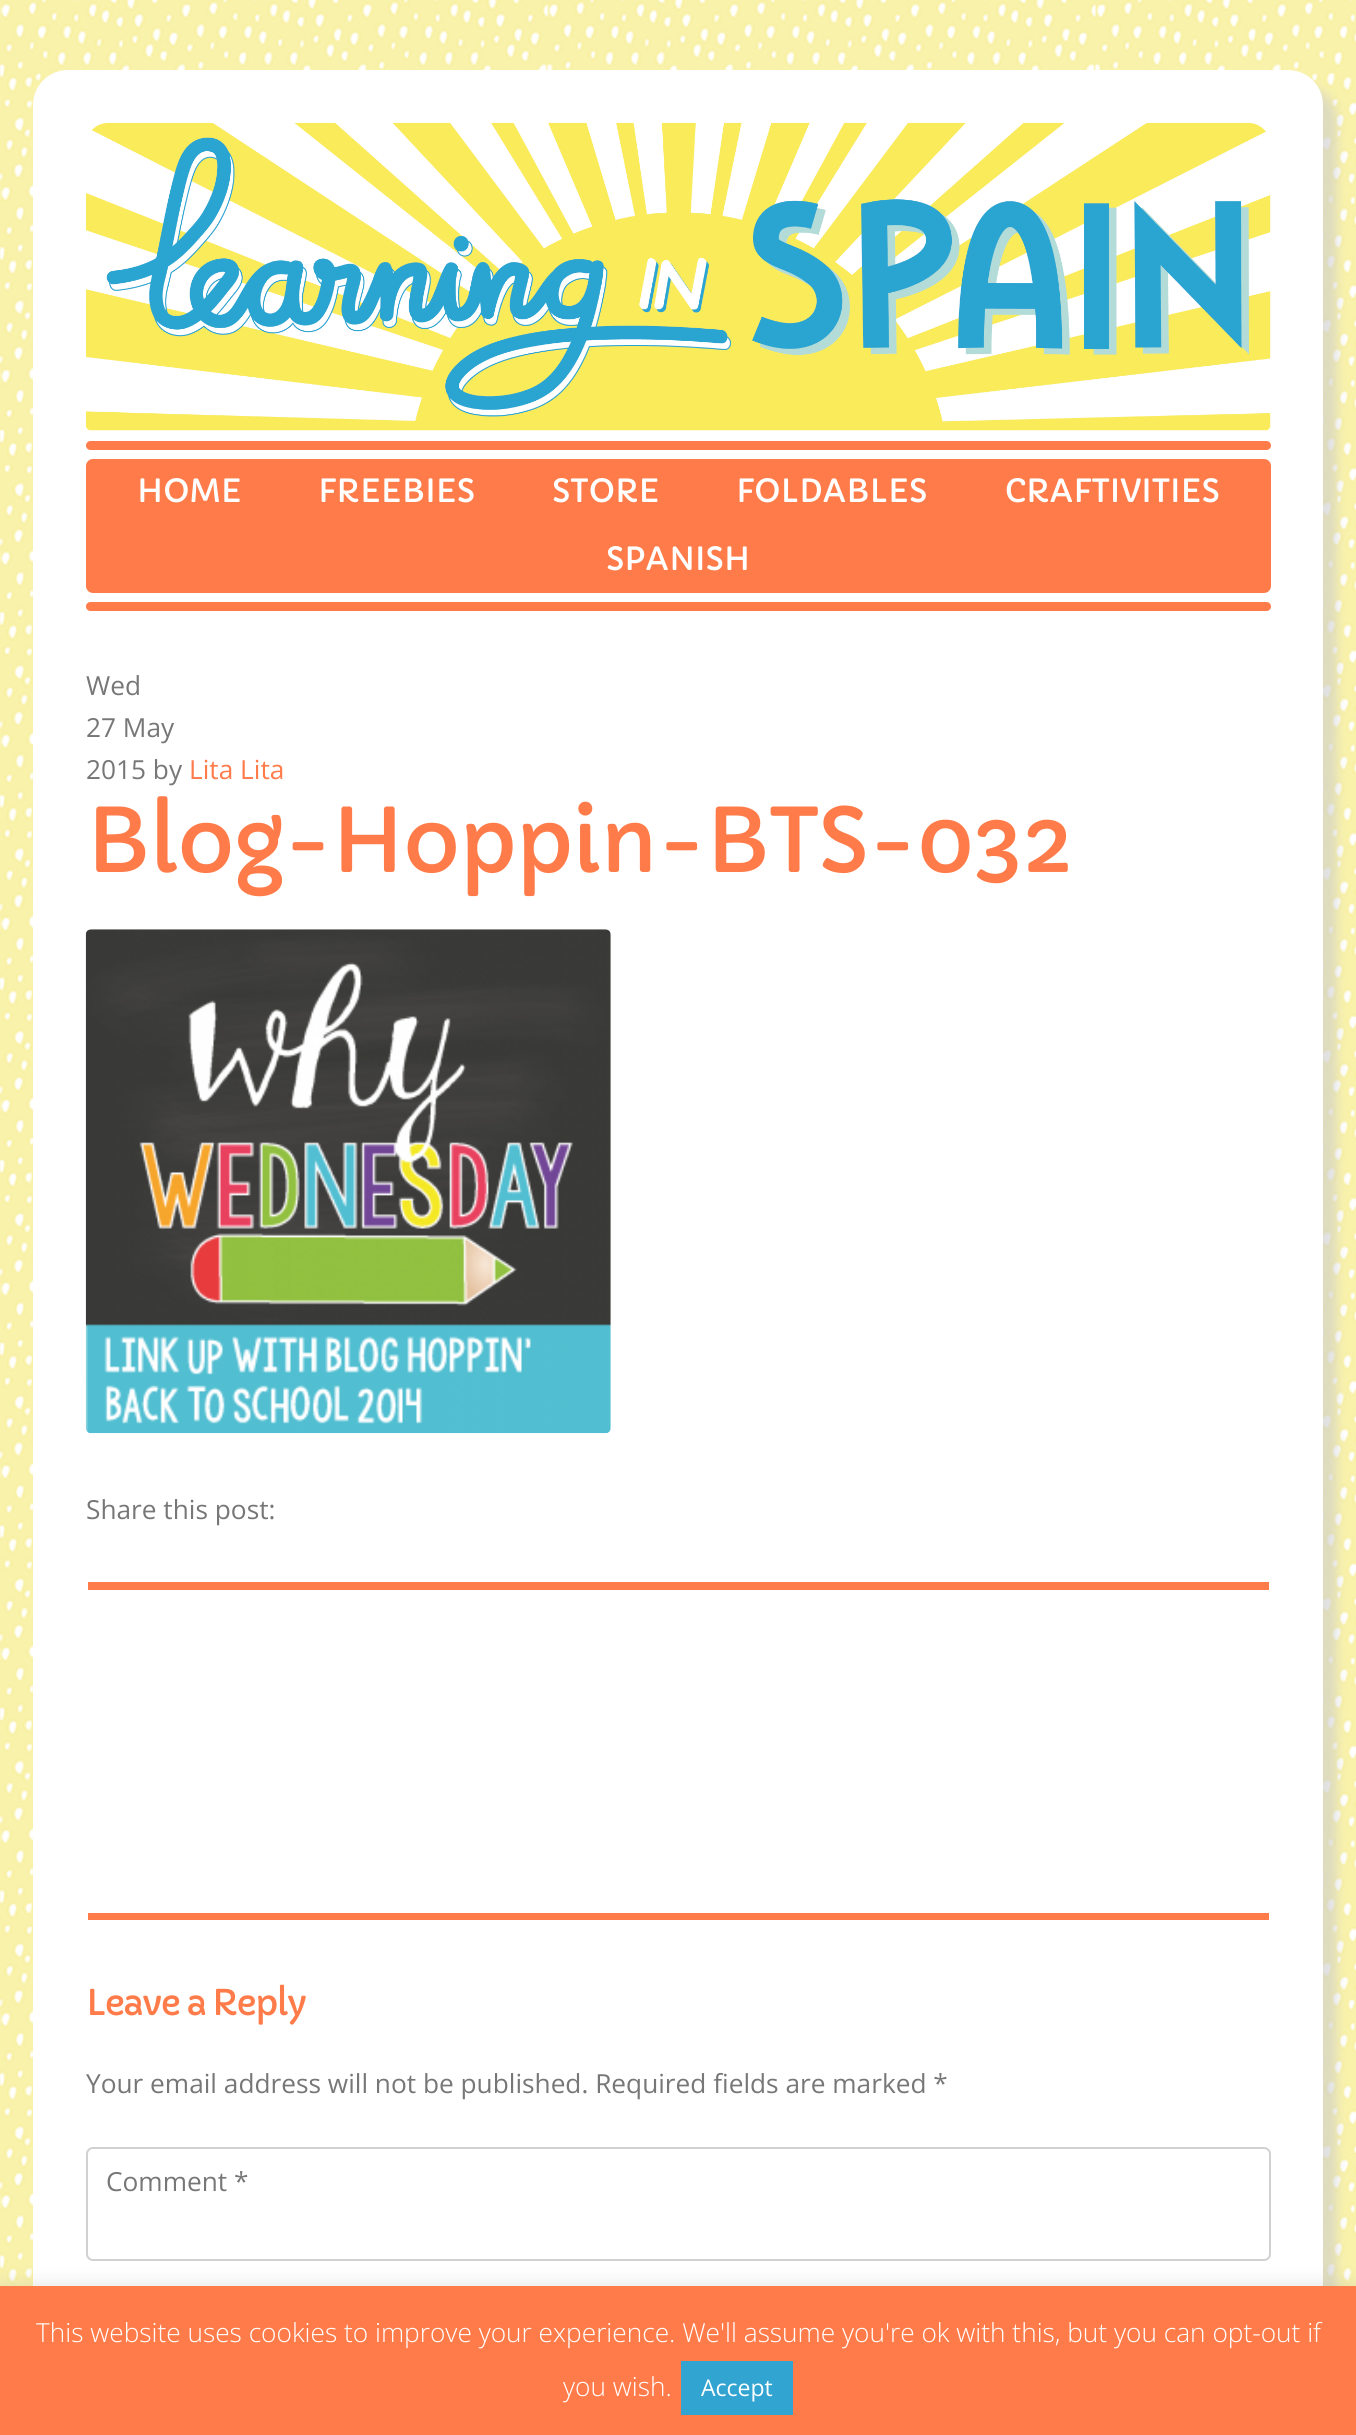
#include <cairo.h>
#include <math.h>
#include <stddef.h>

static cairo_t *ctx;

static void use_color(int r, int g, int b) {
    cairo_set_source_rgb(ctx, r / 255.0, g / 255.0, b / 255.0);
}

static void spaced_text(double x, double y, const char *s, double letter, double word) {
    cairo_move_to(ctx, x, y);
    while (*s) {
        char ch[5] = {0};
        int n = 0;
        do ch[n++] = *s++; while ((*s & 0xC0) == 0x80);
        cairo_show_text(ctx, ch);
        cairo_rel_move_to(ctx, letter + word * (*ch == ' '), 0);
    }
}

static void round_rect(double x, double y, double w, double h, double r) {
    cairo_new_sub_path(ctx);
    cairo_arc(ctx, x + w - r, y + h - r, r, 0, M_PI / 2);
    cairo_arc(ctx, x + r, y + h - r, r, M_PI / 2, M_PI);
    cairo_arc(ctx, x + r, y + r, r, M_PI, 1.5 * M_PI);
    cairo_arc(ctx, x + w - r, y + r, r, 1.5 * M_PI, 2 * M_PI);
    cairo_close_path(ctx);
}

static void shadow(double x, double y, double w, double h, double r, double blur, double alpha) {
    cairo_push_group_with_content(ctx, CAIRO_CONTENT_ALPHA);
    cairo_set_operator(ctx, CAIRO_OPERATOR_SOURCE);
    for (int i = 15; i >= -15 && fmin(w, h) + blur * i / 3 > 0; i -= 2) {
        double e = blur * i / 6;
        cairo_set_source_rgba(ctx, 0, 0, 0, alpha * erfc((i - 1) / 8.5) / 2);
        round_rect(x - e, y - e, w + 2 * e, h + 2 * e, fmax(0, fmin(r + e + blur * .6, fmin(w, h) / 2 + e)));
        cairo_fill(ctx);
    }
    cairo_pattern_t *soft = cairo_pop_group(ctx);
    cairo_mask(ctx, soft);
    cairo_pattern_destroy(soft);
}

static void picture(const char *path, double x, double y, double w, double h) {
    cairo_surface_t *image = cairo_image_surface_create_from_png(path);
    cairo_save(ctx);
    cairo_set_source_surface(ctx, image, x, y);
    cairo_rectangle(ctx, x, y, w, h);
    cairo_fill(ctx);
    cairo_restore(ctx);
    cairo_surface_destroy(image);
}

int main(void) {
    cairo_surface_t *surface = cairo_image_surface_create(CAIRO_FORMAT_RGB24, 1356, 2435);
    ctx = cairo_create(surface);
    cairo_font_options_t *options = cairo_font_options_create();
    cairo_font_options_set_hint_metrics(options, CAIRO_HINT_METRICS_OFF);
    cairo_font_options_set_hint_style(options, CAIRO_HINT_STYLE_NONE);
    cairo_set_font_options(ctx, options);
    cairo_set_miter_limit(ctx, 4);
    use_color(255, 255, 255);
    cairo_paint(ctx);
    picture("img1.png", 0, 0, 1356, 2286);
    use_color(204, 204, 204);
    shadow(54, 86, 1283, 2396, 32, 5, 0.6);
    use_color(255, 255, 255);
    round_rect(33, 70, 1290, 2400, 35);
    cairo_fill(ctx);
    picture("img2.png", 85, 122, 1186, 309);
    use_color(255, 124, 74);
    round_rect(86, 441, 1185, 9, 4.5);
    cairo_fill(ctx);
    round_rect(86, 459, 1185, 134, 7);
    cairo_fill(ctx);
    cairo_select_font_face(ctx, "Capriola", CAIRO_FONT_SLANT_NORMAL, CAIRO_FONT_WEIGHT_NORMAL);
    cairo_set_font_size(ctx, 31.5);
    use_color(255, 255, 255);
    cairo_move_to(ctx, 137, 502);
    cairo_show_text(ctx, "HOME");
    cairo_move_to(ctx, 318, 502);
    cairo_show_text(ctx, "FREEBIES");
    cairo_move_to(ctx, 552, 502);
    cairo_show_text(ctx, "STORE");
    cairo_move_to(ctx, 736, 502);
    cairo_show_text(ctx, "FOLDABLES");
    cairo_move_to(ctx, 1005, 502);
    cairo_show_text(ctx, "CRAFTIVITIES");
    cairo_move_to(ctx, 606, 570);
    cairo_show_text(ctx, "SPANISH");
    use_color(255, 124, 74);
    round_rect(86, 602, 1185, 9, 4.5);
    cairo_fill(ctx);
    cairo_select_font_face(ctx, "Open Sans", CAIRO_FONT_SLANT_NORMAL, CAIRO_FONT_WEIGHT_NORMAL);
    cairo_set_font_size(ctx, 26.25);
    use_color(119, 119, 119);
    cairo_move_to(ctx, 86, 695);
    cairo_show_text(ctx, "Wed");
    cairo_move_to(ctx, 86, 737);
    cairo_show_text(ctx, "27 May");
    cairo_move_to(ctx, 86, 779);
    cairo_show_text(ctx, "2015 by");
    use_color(255, 124, 74);
    cairo_move_to(ctx, 189, 779);
    cairo_show_text(ctx, "Lita Lita");
    cairo_select_font_face(ctx, "Capriola", CAIRO_FONT_SLANT_NORMAL, CAIRO_FONT_WEIGHT_NORMAL);
    cairo_set_font_size(ctx, 87.5);
    spaced_text(86, 872, "Blog-Hoppin-BTS-032", -1.75, 0);
    picture("img3.png", 85, 929, 526, 505);
    cairo_select_font_face(ctx, "Open Sans", CAIRO_FONT_SLANT_NORMAL, CAIRO_FONT_WEIGHT_NORMAL);
    cairo_set_font_size(ctx, 26.25);
    use_color(119, 119, 119);
    cairo_move_to(ctx, 86, 1519);
    cairo_show_text(ctx, "Share this post:");
    use_color(255, 124, 74);
    cairo_rectangle(ctx, 88, 1582, 1181, 8);
    cairo_fill(ctx);
    cairo_rectangle(ctx, 88, 1913, 1181, 7);
    cairo_fill(ctx);
    cairo_select_font_face(ctx, "Capriola", CAIRO_FONT_SLANT_NORMAL, CAIRO_FONT_WEIGHT_NORMAL);
    cairo_set_font_size(ctx, 35);
    spaced_text(86, 2015, "Leave a Reply", -1.75, 0);
    cairo_select_font_face(ctx, "Open Sans", CAIRO_FONT_SLANT_NORMAL, CAIRO_FONT_WEIGHT_NORMAL);
    cairo_set_font_size(ctx, 26.25);
    use_color(119, 119, 119);
    cairo_move_to(ctx, 86, 2093);
    cairo_show_text(ctx, "Your email address will not be published. Required fields are marked *");
    round_rect(87, 2148, 1183, 112, 6);
    use_color(209, 209, 209);
    cairo_stroke(ctx);
    use_color(119, 119, 119);
    cairo_move_to(ctx, 106, 2191);
    cairo_show_text(ctx, "Comment *");
    use_color(172, 171, 171);
    shadow(0, 2284, 1356, 150, 0, 9, 0.3);
    use_color(255, 124, 74);
    cairo_rectangle(ctx, 0, 2286, 1356, 149);
    cairo_fill(ctx);
    cairo_select_font_face(ctx, "Open Sans Light", CAIRO_FONT_SLANT_NORMAL, CAIRO_FONT_WEIGHT_NORMAL);
    use_color(255, 255, 255);
    cairo_move_to(ctx, 36, 2342);
    cairo_show_text(ctx, "This website uses cookies to improve your experience. We'll assume you're ok with this, but you can opt-out if");
    cairo_move_to(ctx, 563, 2396);
    cairo_show_text(ctx, "you wish.");
    use_color(49, 164, 209);
    cairo_rectangle(ctx, 681, 2361, 112, 54);
    cairo_fill(ctx);
    cairo_select_font_face(ctx, "Open Sans", CAIRO_FONT_SLANT_NORMAL, CAIRO_FONT_WEIGHT_NORMAL);
    cairo_set_font_size(ctx, 23);
    use_color(255, 255, 255);
    cairo_move_to(ctx, 701, 2396);
    cairo_show_text(ctx, "Accept");
    cairo_surface_write_to_png(surface, "result.png");
    cairo_font_options_destroy(options);
    cairo_destroy(ctx);
    cairo_surface_destroy(surface);
    return 0;
}
